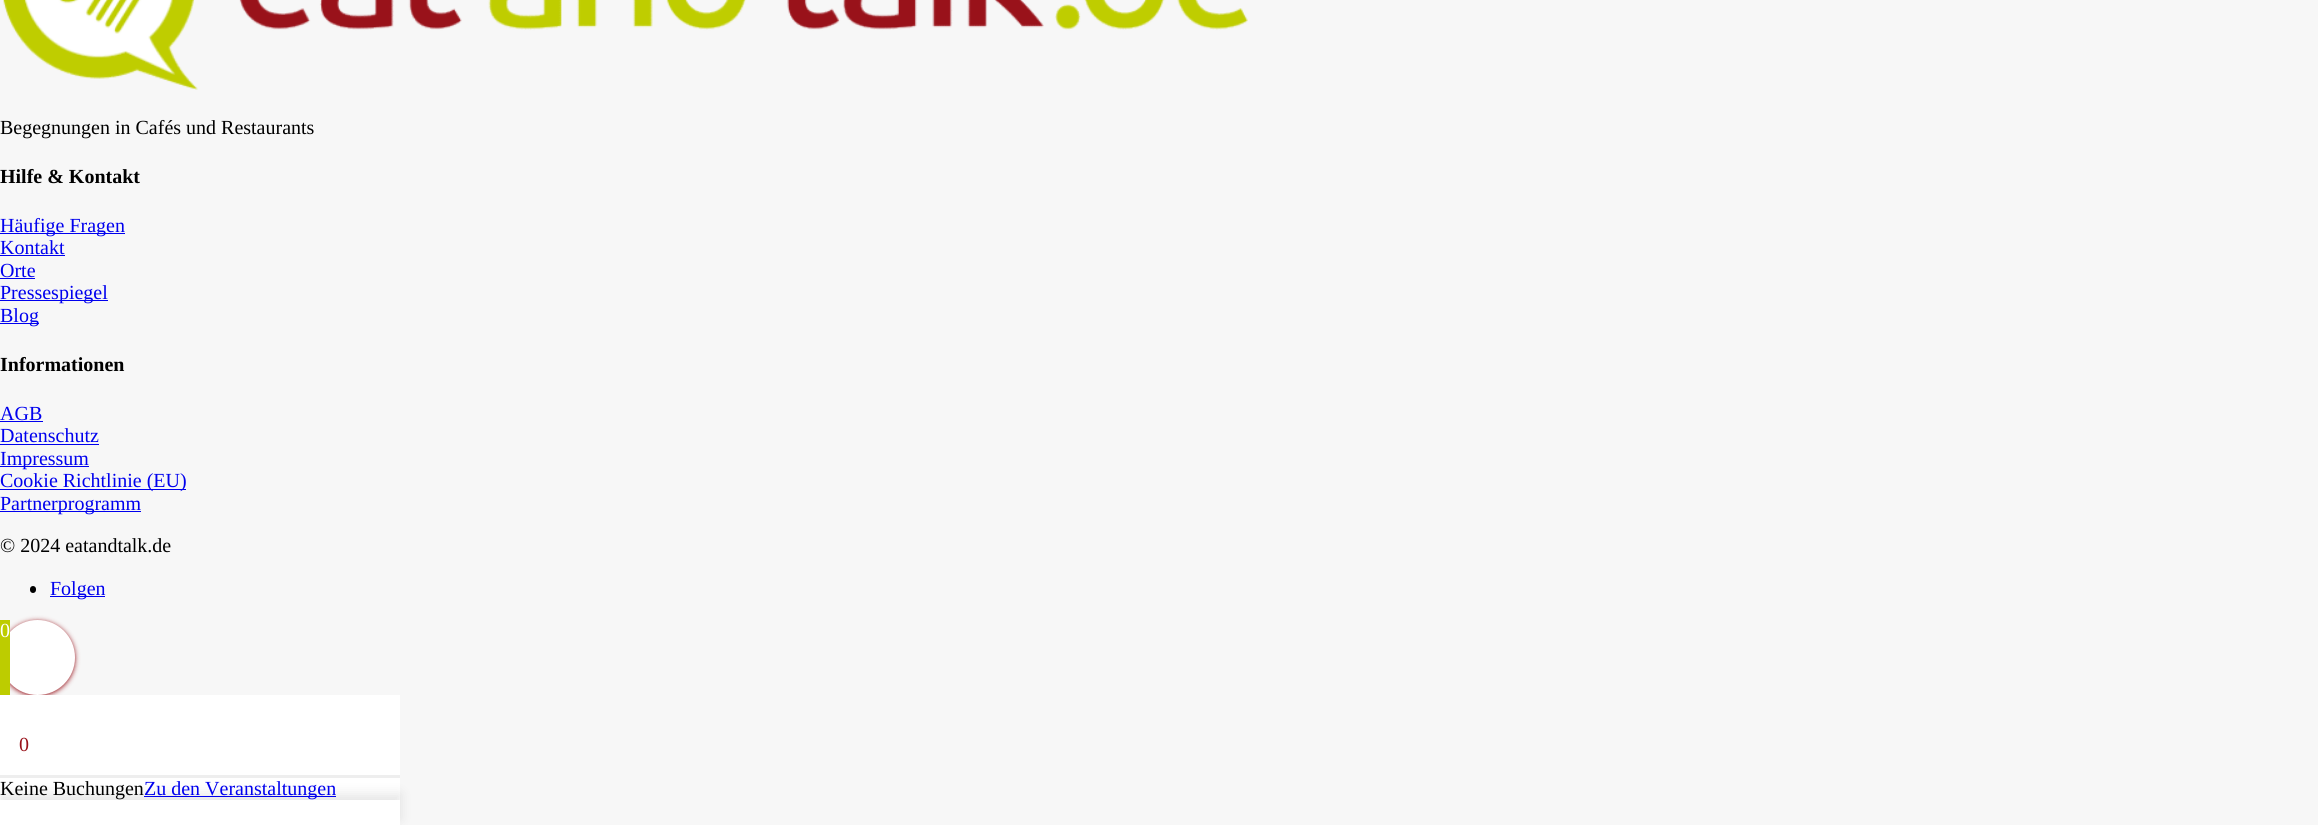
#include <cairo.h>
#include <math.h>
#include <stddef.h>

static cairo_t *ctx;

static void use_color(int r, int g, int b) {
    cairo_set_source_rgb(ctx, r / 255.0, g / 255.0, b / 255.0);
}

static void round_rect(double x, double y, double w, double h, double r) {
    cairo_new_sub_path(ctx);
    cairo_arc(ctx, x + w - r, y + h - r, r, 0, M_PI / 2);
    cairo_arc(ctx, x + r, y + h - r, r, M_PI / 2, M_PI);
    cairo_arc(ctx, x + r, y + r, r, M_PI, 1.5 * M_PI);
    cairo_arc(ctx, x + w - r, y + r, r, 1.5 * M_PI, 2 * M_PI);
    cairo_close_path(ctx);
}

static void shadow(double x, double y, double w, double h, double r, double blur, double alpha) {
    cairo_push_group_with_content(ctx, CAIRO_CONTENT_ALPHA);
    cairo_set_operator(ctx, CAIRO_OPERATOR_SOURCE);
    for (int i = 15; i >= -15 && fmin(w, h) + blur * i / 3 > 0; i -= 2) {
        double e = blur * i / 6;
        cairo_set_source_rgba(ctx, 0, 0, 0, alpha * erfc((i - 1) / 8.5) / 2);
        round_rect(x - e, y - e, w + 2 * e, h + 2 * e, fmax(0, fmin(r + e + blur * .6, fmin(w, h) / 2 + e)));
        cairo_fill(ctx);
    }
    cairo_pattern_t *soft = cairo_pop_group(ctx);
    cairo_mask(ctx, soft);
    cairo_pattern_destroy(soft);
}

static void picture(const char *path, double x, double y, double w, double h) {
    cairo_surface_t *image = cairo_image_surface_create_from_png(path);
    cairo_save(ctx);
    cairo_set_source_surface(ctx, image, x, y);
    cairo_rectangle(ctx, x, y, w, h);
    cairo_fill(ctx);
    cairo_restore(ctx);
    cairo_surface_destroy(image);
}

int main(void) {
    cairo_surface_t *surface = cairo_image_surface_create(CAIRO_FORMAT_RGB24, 2318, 825);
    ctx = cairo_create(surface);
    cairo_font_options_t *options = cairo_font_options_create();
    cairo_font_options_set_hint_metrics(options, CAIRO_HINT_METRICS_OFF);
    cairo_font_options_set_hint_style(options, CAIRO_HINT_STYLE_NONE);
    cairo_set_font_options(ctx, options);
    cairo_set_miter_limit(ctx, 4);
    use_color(247, 247, 247);
    cairo_paint(ctx);
    picture("img1.png", 3, 0, 1245, 90);
    cairo_select_font_face(ctx, "Liberation Serif", CAIRO_FONT_SLANT_NORMAL, CAIRO_FONT_WEIGHT_NORMAL);
    cairo_set_font_size(ctx, 20);
    use_color(0, 0, 0);
    cairo_move_to(ctx, 0, 134);
    cairo_show_text(ctx, "Begegnungen in Cafés und Restaurants");
    cairo_select_font_face(ctx, "Liberation Serif", CAIRO_FONT_SLANT_NORMAL, CAIRO_FONT_WEIGHT_BOLD);
    cairo_move_to(ctx, 0, 183);
    cairo_show_text(ctx, "Hilfe & Kontakt");
    use_color(0, 0, 238);
    cairo_rectangle(ctx, 0, 233, 125, 1);
    cairo_fill(ctx);
    cairo_select_font_face(ctx, "Liberation Serif", CAIRO_FONT_SLANT_NORMAL, CAIRO_FONT_WEIGHT_NORMAL);
    cairo_move_to(ctx, 0, 232);
    cairo_show_text(ctx, "Häufige Fragen");
    cairo_move_to(ctx, 0, 254);
    cairo_show_text(ctx, "Kontakt");
    cairo_rectangle(ctx, 0, 255, 65, 1);
    cairo_fill(ctx);
    cairo_move_to(ctx, 0, 277);
    cairo_show_text(ctx, "Orte");
    cairo_rectangle(ctx, 0, 278, 35, 1);
    cairo_fill(ctx);
    cairo_rectangle(ctx, 0, 300, 108, 1);
    cairo_fill(ctx);
    cairo_move_to(ctx, 0, 299);
    cairo_show_text(ctx, "Pressespiegel");
    cairo_rectangle(ctx, 0, 323, 39, 1);
    cairo_fill(ctx);
    cairo_move_to(ctx, 0, 322);
    cairo_show_text(ctx, "Blog");
    cairo_select_font_face(ctx, "Liberation Serif", CAIRO_FONT_SLANT_NORMAL, CAIRO_FONT_WEIGHT_BOLD);
    use_color(0, 0, 0);
    cairo_move_to(ctx, 0, 371);
    cairo_show_text(ctx, "Informationen");
    cairo_select_font_face(ctx, "Liberation Serif", CAIRO_FONT_SLANT_NORMAL, CAIRO_FONT_WEIGHT_NORMAL);
    use_color(0, 0, 238);
    cairo_move_to(ctx, 0, 420);
    cairo_show_text(ctx, "AGB");
    cairo_rectangle(ctx, 0, 421, 43, 1);
    cairo_fill(ctx);
    cairo_move_to(ctx, 0, 442);
    cairo_show_text(ctx, "Datenschutz");
    cairo_rectangle(ctx, 0, 444, 99, 1);
    cairo_fill(ctx);
    cairo_rectangle(ctx, 0, 466, 89, 1);
    cairo_fill(ctx);
    cairo_move_to(ctx, 0, 465);
    cairo_show_text(ctx, "Impressum");
    cairo_rectangle(ctx, 0, 489, 186, 1);
    cairo_fill(ctx);
    cairo_move_to(ctx, 0, 487);
    cairo_show_text(ctx, "Cookie Richtlinie (EU)");
    cairo_rectangle(ctx, 0, 511, 141, 1);
    cairo_fill(ctx);
    cairo_move_to(ctx, 0, 510);
    cairo_show_text(ctx, "Partnerprogramm");
    use_color(0, 0, 0);
    cairo_move_to(ctx, 0, 552);
    cairo_show_text(ctx, "© 2024 eatandtalk.de");
    round_rect(30, 586, 6, 7, 3);
    cairo_fill(ctx);
    use_color(0, 0, 238);
    cairo_rectangle(ctx, 50, 596, 55, 1);
    cairo_fill(ctx);
    cairo_move_to(ctx, 50, 595);
    cairo_show_text(ctx, "Folgen");
    use_color(152, 18, 26);
    shadow(0, 621, 75, 75, 37.5, 2.5, 1);
    use_color(255, 255, 255);
    cairo_arc(ctx, 37.5, 657.5, 37.5, 0, 2 * M_PI);
    cairo_fill(ctx);
    use_color(189, 204, 0);
    cairo_rectangle(ctx, 0, 620, 10, 75);
    cairo_fill(ctx);
    use_color(255, 255, 255);
    cairo_move_to(ctx, 0, 637);
    cairo_show_text(ctx, "0");
    cairo_rectangle(ctx, 0, 695, 400, 80);
    cairo_fill(ctx);
    use_color(238, 238, 238);
    cairo_rectangle(ctx, 0, 775, 400, 3);
    cairo_fill(ctx);
    use_color(152, 18, 26);
    cairo_move_to(ctx, 19, 751);
    cairo_show_text(ctx, "0");
    use_color(255, 255, 255);
    cairo_rectangle(ctx, 0, 778, 400, 22);
    cairo_fill(ctx);
    use_color(0, 0, 0);
    shadow(0, 794, 400, 25, 0, 6, 0.1);
    use_color(255, 255, 255);
    cairo_rectangle(ctx, 0, 800, 400, 25);
    cairo_fill(ctx);
    use_color(0, 0, 0);
    cairo_move_to(ctx, 0, 795);
    cairo_show_text(ctx, "Keine Buchungen");
    use_color(0, 0, 238);
    cairo_rectangle(ctx, 144, 796, 192, 1);
    cairo_fill(ctx);
    cairo_move_to(ctx, 144, 795);
    cairo_show_text(ctx, "Zu den Veranstaltungen");
    cairo_surface_write_to_png(surface, "result.png");
    cairo_font_options_destroy(options);
    cairo_destroy(ctx);
    cairo_surface_destroy(surface);
    return 0;
}
